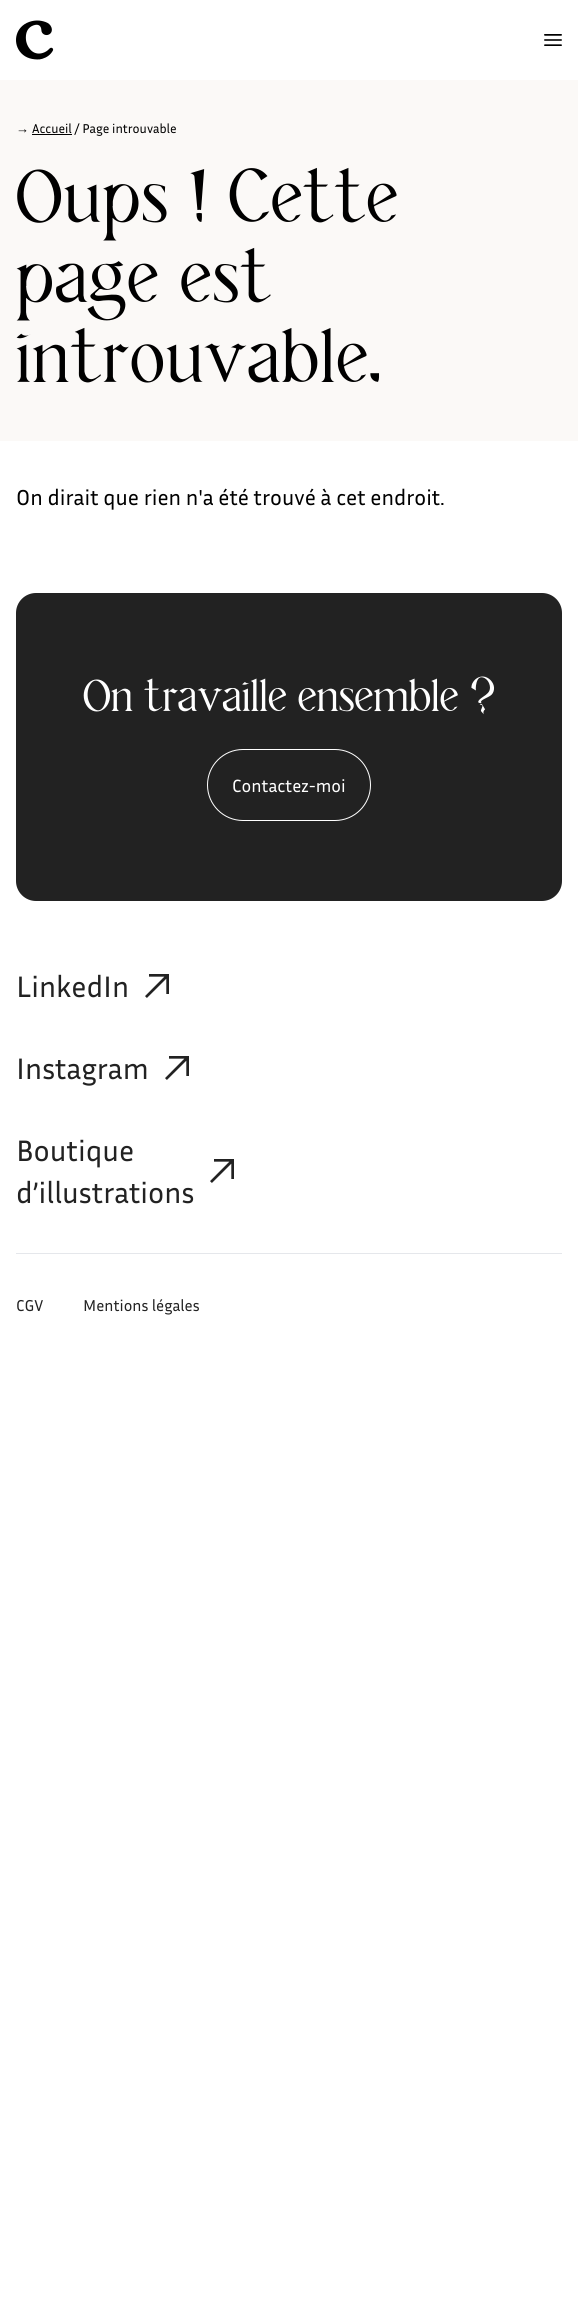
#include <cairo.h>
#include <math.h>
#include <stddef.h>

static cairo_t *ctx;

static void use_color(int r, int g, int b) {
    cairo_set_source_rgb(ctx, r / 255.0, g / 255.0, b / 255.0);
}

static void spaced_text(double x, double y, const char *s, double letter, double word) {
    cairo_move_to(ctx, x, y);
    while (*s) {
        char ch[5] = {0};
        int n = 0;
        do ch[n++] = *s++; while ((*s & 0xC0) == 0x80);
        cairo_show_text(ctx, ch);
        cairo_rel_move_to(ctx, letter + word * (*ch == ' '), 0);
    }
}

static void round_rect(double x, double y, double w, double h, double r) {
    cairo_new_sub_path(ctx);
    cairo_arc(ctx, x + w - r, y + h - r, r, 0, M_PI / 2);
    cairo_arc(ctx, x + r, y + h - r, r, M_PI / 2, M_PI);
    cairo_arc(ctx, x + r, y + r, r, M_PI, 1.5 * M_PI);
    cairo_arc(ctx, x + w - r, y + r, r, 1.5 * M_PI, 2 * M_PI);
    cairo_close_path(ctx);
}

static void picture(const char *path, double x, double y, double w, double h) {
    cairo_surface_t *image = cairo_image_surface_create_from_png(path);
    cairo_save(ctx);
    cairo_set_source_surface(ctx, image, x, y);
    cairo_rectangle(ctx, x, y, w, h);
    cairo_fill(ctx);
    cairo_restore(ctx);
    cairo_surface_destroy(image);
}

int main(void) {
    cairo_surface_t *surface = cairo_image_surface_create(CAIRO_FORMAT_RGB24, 578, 2324);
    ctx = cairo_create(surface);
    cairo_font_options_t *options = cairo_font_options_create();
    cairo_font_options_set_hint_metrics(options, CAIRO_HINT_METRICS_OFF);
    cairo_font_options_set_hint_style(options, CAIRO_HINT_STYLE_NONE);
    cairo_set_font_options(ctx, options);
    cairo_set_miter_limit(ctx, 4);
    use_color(255, 255, 255);
    cairo_paint(ctx);
    picture("img1.png", 16, 20, 38, 40);
    picture("img2.png", 544, 34, 18, 12);
    use_color(251, 249, 247);
    cairo_rectangle(ctx, 0, 80, 578, 361);
    cairo_fill(ctx);
    cairo_select_font_face(ctx, "Liberation Sans", CAIRO_FONT_SLANT_NORMAL, CAIRO_FONT_WEIGHT_NORMAL);
    cairo_set_font_size(ctx, 13);
    use_color(0, 0, 0);
    cairo_move_to(ctx, 16, 133);
    cairo_show_text(ctx, "→");
    cairo_rectangle(ctx, 32, 134, 40, 1);
    cairo_fill(ctx);
    cairo_select_font_face(ctx, "Inria Sans", CAIRO_FONT_SLANT_NORMAL, CAIRO_FONT_WEIGHT_NORMAL);
    cairo_move_to(ctx, 32, 133);
    cairo_show_text(ctx, "Accueil / Page introuvable");
    cairo_select_font_face(ctx, "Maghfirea", CAIRO_FONT_SLANT_NORMAL, CAIRO_FONT_WEIGHT_NORMAL);
    cairo_set_font_size(ctx, 80);
    spaced_text(16, 222, "Oups ! Cette", 1.6, 0);
    spaced_text(16, 302, "page est", 1.6, 0);
    spaced_text(16, 382, "introuvable.", 1.6, 0);
    cairo_select_font_face(ctx, "Inria Sans", CAIRO_FONT_SLANT_NORMAL, CAIRO_FONT_WEIGHT_NORMAL);
    cairo_set_font_size(ctx, 22);
    cairo_move_to(ctx, 16, 505);
    cairo_show_text(ctx, "On dirait que rien n'a été trouvé à cet endroit.");
    use_color(34, 34, 34);
    round_rect(16, 593, 546, 308, 20);
    cairo_fill(ctx);
    cairo_select_font_face(ctx, "Maghfirea", CAIRO_FONT_SLANT_NORMAL, CAIRO_FONT_WEIGHT_NORMAL);
    cairo_set_font_size(ctx, 48);
    use_color(255, 255, 255);
    cairo_move_to(ctx, 83, 711);
    cairo_show_text(ctx, "On travaille ensemble ?");
    round_rect(207.5, 749.5, 163, 71, 35.5);
    cairo_set_line_width(ctx, 1);
    cairo_stroke(ctx);
    cairo_select_font_face(ctx, "Inria Sans", CAIRO_FONT_SLANT_NORMAL, CAIRO_FONT_WEIGHT_NORMAL);
    cairo_set_font_size(ctx, 18);
    cairo_move_to(ctx, 232, 792);
    cairo_show_text(ctx, "Contactez-moi");
    cairo_set_font_size(ctx, 30);
    use_color(34, 34, 34);
    cairo_move_to(ctx, 16, 997);
    cairo_show_text(ctx, "LinkedIn");
    picture("img3.png", 145, 974, 24, 24);
    cairo_move_to(ctx, 16, 1079);
    cairo_show_text(ctx, "Instagram");
    picture("img3.png", 165, 1056, 24, 24);
    cairo_move_to(ctx, 16, 1161);
    cairo_show_text(ctx, "Boutique");
    picture("img3.png", 210, 1159, 24, 24);
    cairo_move_to(ctx, 16, 1203);
    cairo_show_text(ctx, "d’illustrations");
    use_color(229, 231, 235);
    cairo_rectangle(ctx, 16, 1253, 546, 1);
    cairo_fill(ctx);
    cairo_set_font_size(ctx, 16);
    use_color(34, 34, 34);
    cairo_move_to(ctx, 16, 1311);
    cairo_show_text(ctx, "CGV");
    cairo_move_to(ctx, 83, 1311);
    cairo_show_text(ctx, "Mentions légales");
    cairo_surface_write_to_png(surface, "result.png");
    cairo_font_options_destroy(options);
    cairo_destroy(ctx);
    cairo_surface_destroy(surface);
    return 0;
}
